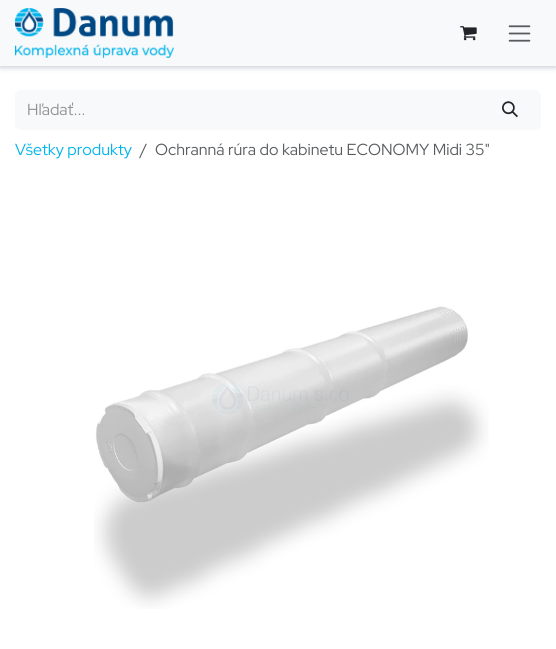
#include <cairo.h>
#include <math.h>
#include <stddef.h>

static cairo_t *ctx;

static void use_color(int r, int g, int b) {
    cairo_set_source_rgb(ctx, r / 255.0, g / 255.0, b / 255.0);
}

static void round_rect(double x, double y, double w, double h, double r) {
    cairo_new_sub_path(ctx);
    cairo_arc(ctx, x + w - r, y + h - r, r, 0, M_PI / 2);
    cairo_arc(ctx, x + r, y + h - r, r, M_PI / 2, M_PI);
    cairo_arc(ctx, x + r, y + r, r, M_PI, 1.5 * M_PI);
    cairo_arc(ctx, x + w - r, y + r, r, 1.5 * M_PI, 2 * M_PI);
    cairo_close_path(ctx);
}

static void shadow(double x, double y, double w, double h, double r, double blur, double alpha) {
    cairo_push_group_with_content(ctx, CAIRO_CONTENT_ALPHA);
    cairo_set_operator(ctx, CAIRO_OPERATOR_SOURCE);
    for (int i = 15; i >= -15 && fmin(w, h) + blur * i / 3 > 0; i -= 2) {
        double e = blur * i / 6;
        cairo_set_source_rgba(ctx, 0, 0, 0, alpha * erfc((i - 1) / 8.5) / 2);
        round_rect(x - e, y - e, w + 2 * e, h + 2 * e, fmax(0, fmin(r + e + blur * .6, fmin(w, h) / 2 + e)));
        cairo_fill(ctx);
    }
    cairo_pattern_t *soft = cairo_pop_group(ctx);
    cairo_mask(ctx, soft);
    cairo_pattern_destroy(soft);
}

static void picture(const char *path, double x, double y, double w, double h) {
    cairo_surface_t *image = cairo_image_surface_create_from_png(path);
    cairo_save(ctx);
    cairo_set_source_surface(ctx, image, x, y);
    cairo_rectangle(ctx, x, y, w, h);
    cairo_fill(ctx);
    cairo_restore(ctx);
    cairo_surface_destroy(image);
}

int main(void) {
    cairo_surface_t *surface = cairo_image_surface_create(CAIRO_FORMAT_RGB24, 556, 649);
    ctx = cairo_create(surface);
    cairo_font_options_t *options = cairo_font_options_create();
    cairo_font_options_set_hint_metrics(options, CAIRO_HINT_METRICS_OFF);
    cairo_font_options_set_hint_style(options, CAIRO_HINT_STYLE_NONE);
    cairo_set_font_options(ctx, options);
    cairo_set_miter_limit(ctx, 4);
    use_color(255, 255, 255);
    cairo_paint(ctx);
    use_color(206, 212, 218);
    shadow(0, 2, 556, 66, 0, 2.5, 1);
    use_color(248, 249, 250);
    cairo_rectangle(ctx, 0, 0, 556, 66);
    cairo_fill(ctx);
    picture("img1.png", 15, 8, 159, 50);
    picture("img2.png", 460, 26, 17, 15);
    picture("img3.png", 508, 25, 23, 17);
    cairo_new_path(ctx);
    cairo_move_to(ctx, 21, 90);
    cairo_line_to(ctx, 481, 90);
    cairo_line_to(ctx, 481, 130);
    cairo_line_to(ctx, 21, 130);
    cairo_curve_to(ctx, 17.5, 130, 15, 127.5, 15, 124);
    cairo_line_to(ctx, 15, 96);
    cairo_curve_to(ctx, 15, 92.5, 17.5, 90, 21, 90);
    cairo_close_path(ctx);
    cairo_fill(ctx);
    cairo_select_font_face(ctx, "Red Hat Display", CAIRO_FONT_SLANT_NORMAL, CAIRO_FONT_WEIGHT_NORMAL);
    cairo_set_font_size(ctx, 16);
    use_color(144, 146, 148);
    cairo_move_to(ctx, 27, 115);
    cairo_show_text(ctx, "Hľadať...");
    use_color(248, 249, 250);
    cairo_new_path(ctx);
    cairo_move_to(ctx, 480, 90);
    cairo_line_to(ctx, 535, 90);
    cairo_curve_to(ctx, 538.5, 90, 541, 92.5, 541, 96);
    cairo_line_to(ctx, 541, 124);
    cairo_curve_to(ctx, 541, 127.5, 538.5, 130, 535, 130);
    cairo_line_to(ctx, 480, 130);
    cairo_close_path(ctx);
    cairo_fill(ctx);
    picture("img4.png", 502, 101, 16, 17);
    use_color(0, 180, 236);
    cairo_move_to(ctx, 15, 155);
    cairo_show_text(ctx, "Všetky produkty");
    use_color(89, 92, 95);
    cairo_move_to(ctx, 140, 155);
    cairo_show_text(ctx, "/");
    cairo_move_to(ctx, 155, 155);
    cairo_show_text(ctx, "Ochranná rúra do kabinetu ECONOMY Midi 35\"");
    picture("img5.png", 94, 306, 395, 303);
    cairo_surface_write_to_png(surface, "result.png");
    cairo_font_options_destroy(options);
    cairo_destroy(ctx);
    cairo_surface_destroy(surface);
    return 0;
}
